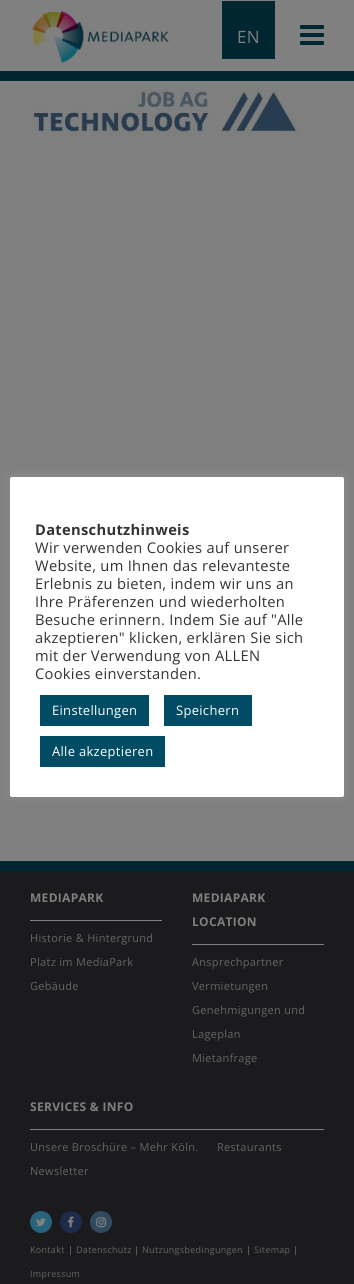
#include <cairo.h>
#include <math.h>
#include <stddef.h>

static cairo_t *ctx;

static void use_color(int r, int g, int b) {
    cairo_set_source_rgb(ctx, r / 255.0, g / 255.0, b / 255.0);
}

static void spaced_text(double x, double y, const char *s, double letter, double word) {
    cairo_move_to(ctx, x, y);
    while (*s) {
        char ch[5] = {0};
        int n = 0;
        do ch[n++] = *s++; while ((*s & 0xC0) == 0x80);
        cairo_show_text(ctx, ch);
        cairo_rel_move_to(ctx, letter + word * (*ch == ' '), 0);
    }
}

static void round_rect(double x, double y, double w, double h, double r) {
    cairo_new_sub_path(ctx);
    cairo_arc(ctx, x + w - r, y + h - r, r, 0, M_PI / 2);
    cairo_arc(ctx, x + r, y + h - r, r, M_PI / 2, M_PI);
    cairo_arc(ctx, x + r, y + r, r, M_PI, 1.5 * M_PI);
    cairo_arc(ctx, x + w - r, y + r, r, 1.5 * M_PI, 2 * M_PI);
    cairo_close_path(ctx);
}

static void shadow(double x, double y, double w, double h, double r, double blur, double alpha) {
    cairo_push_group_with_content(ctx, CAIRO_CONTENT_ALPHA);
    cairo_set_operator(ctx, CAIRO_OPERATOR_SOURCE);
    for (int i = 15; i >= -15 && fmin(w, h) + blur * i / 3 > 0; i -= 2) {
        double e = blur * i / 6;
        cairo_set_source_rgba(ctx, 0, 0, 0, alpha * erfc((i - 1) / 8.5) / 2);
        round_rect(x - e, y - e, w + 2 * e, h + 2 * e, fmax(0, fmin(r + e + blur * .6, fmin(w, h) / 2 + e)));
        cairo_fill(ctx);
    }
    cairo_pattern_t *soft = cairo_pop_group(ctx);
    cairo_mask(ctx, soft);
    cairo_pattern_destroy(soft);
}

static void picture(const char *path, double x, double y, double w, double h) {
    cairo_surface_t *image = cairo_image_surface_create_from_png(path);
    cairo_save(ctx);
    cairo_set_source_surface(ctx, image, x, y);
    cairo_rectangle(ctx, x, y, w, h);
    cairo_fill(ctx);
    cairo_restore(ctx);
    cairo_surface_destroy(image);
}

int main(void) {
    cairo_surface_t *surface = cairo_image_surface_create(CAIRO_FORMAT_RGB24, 354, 1284);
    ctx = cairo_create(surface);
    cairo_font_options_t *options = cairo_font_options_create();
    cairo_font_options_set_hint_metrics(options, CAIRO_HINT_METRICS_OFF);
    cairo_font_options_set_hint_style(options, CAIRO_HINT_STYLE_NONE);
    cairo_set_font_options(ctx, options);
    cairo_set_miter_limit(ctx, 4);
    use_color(128, 128, 128);
    cairo_paint(ctx);
    use_color(0, 38, 50);
    cairo_rectangle(ctx, 0, 71, 354, 10);
    cairo_fill(ctx);
    picture("img1.png", 32, 11, 137, 52);
    cairo_rectangle(ctx, 222, 1, 53, 58);
    cairo_fill(ctx);
    cairo_select_font_face(ctx, "Open Sans", CAIRO_FONT_SLANT_NORMAL, CAIRO_FONT_WEIGHT_NORMAL);
    cairo_set_font_size(ctx, 17);
    use_color(128, 128, 128);
    spaced_text(237, 43, "EN", 0.3, 0);
    picture("img2.png", 300, 25, 24, 20);
    picture("img3.png", 30, 89, 273, 48);
    use_color(27, 26, 28);
    cairo_rectangle(ctx, 0, 871, 354, 413);
    cairo_fill(ctx);
    use_color(0, 38, 50);
    cairo_rectangle(ctx, 0, 861, 354, 10);
    cairo_fill(ctx);
    cairo_select_font_face(ctx, "Open Sans", CAIRO_FONT_SLANT_NORMAL, CAIRO_FONT_WEIGHT_BOLD);
    cairo_set_font_size(ctx, 12);
    use_color(128, 128, 128);
    spaced_text(30, 902, "MEDIAPARK", 0.3, 0);
    cairo_rectangle(ctx, 30, 920, 132, 1);
    cairo_fill(ctx);
    cairo_select_font_face(ctx, "Open Sans", CAIRO_FONT_SLANT_NORMAL, CAIRO_FONT_WEIGHT_NORMAL);
    cairo_set_font_size(ctx, 11);
    use_color(101, 101, 101);
    spaced_text(30, 942, "Historie & Hintergrund", 0.3, 0);
    spaced_text(30, 966, "Platz im MediaPark", 0.3, 0);
    spaced_text(30, 990, "Gebäude", 0.3, 0);
    cairo_select_font_face(ctx, "Open Sans", CAIRO_FONT_SLANT_NORMAL, CAIRO_FONT_WEIGHT_BOLD);
    cairo_set_font_size(ctx, 12);
    use_color(128, 128, 128);
    spaced_text(192, 902, "MEDIAPARK", 0.3, 0);
    spaced_text(192, 926, "LOCATION", 0.3, 0);
    cairo_rectangle(ctx, 192, 944, 132, 1);
    cairo_fill(ctx);
    cairo_select_font_face(ctx, "Open Sans", CAIRO_FONT_SLANT_NORMAL, CAIRO_FONT_WEIGHT_NORMAL);
    cairo_set_font_size(ctx, 11);
    use_color(101, 101, 101);
    spaced_text(192, 966, "Ansprechpartner", 0.3, 0);
    spaced_text(192, 990, "Vermietungen", 0.3, 0);
    spaced_text(192, 1014, "Genehmigungen und", 0.3, 0);
    spaced_text(192, 1038, "Lageplan", 0.3, 0);
    spaced_text(192, 1062, "Mietanfrage", 0.3, 0);
    cairo_select_font_face(ctx, "Open Sans", CAIRO_FONT_SLANT_NORMAL, CAIRO_FONT_WEIGHT_BOLD);
    cairo_set_font_size(ctx, 12);
    use_color(128, 128, 128);
    spaced_text(30, 1111, "SERVICES & INFO", 0.3, 0);
    cairo_rectangle(ctx, 30, 1129, 294, 1);
    cairo_fill(ctx);
    cairo_select_font_face(ctx, "Open Sans", CAIRO_FONT_SLANT_NORMAL, CAIRO_FONT_WEIGHT_NORMAL);
    cairo_set_font_size(ctx, 11);
    use_color(101, 101, 101);
    spaced_text(30, 1151, "Unsere Broschüre – Mehr Köln.", 0.3, 0);
    spaced_text(217, 1151, "Restaurants", 0.3, 0);
    spaced_text(30, 1175, "Newsletter", 0.3, 0);
    picture("img4.png", 30, 1211, 22, 22);
    picture("img5.png", 60, 1211, 22, 22);
    picture("img6.png", 90, 1211, 22, 22);
    cairo_set_font_size(ctx, 9);
    spaced_text(30, 1253, "Kontakt", 0.3, 0);
    use_color(128, 128, 128);
    spaced_text(68, 1253, "|", 0.3, 0);
    use_color(101, 101, 101);
    spaced_text(76, 1253, "Datenschutz", 0.3, 0);
    use_color(128, 128, 128);
    spaced_text(134, 1253, "|", 0.3, 0);
    use_color(101, 101, 101);
    spaced_text(142, 1253, "Nutzungsbedingungen", 0.3, 0);
    use_color(128, 128, 128);
    spaced_text(246, 1253, "|", 0.3, 0);
    use_color(101, 101, 101);
    spaced_text(254, 1253, "Sitemap", 0.3, 0);
    use_color(128, 128, 128);
    spaced_text(293, 1253, "|", 0.3, 0);
    use_color(101, 101, 101);
    spaced_text(30, 1277, "Impressum", 0.3, 0);
    use_color(172, 171, 171);
    shadow(10, 476, 334, 320, 2, 5, 0.3);
    use_color(255, 255, 255);
    round_rect(10, 477, 334, 320, 2);
    cairo_fill(ctx);
    cairo_select_font_face(ctx, "Open Sans", CAIRO_FONT_SLANT_NORMAL, CAIRO_FONT_WEIGHT_BOLD);
    cairo_set_font_size(ctx, 14.7);
    use_color(51, 51, 51);
    spaced_text(35, 535, "Datenschutzhinweis", 0.3, 0);
    cairo_select_font_face(ctx, "Open Sans", CAIRO_FONT_SLANT_NORMAL, CAIRO_FONT_WEIGHT_NORMAL);
    spaced_text(35, 553, "Wir verwenden Cookies auf unserer", 0.3, 0);
    spaced_text(35, 571, "Website, um Ihnen das relevanteste", 0.3, 0);
    spaced_text(35, 589, "Erlebnis zu bieten, indem wir uns an", 0.3, 0);
    spaced_text(35, 607, "Ihre Präferenzen und wiederholten", 0.3, 0);
    spaced_text(35, 625, "Besuche erinnern. Indem Sie auf \"Alle", 0.3, 0);
    spaced_text(35, 643, "akzeptieren\" klicken, erklären Sie sich", 0.3, 0);
    spaced_text(35, 661, "mit der Verwendung von ALLEN", 0.3, 0);
    spaced_text(35, 679, "Cookies einverstanden.", 0.3, 0);
    use_color(0, 76, 100);
    cairo_rectangle(ctx, 40, 695, 109, 31);
    cairo_fill(ctx);
    cairo_set_font_size(ctx, 13);
    use_color(255, 255, 255);
    spaced_text(52, 715, "Einstellungen", 0.3, 0);
    use_color(0, 76, 100);
    cairo_rectangle(ctx, 164, 695, 88, 31);
    cairo_fill(ctx);
    use_color(255, 255, 255);
    spaced_text(176, 715, "Speichern", 0.3, 0);
    use_color(0, 76, 100);
    cairo_rectangle(ctx, 40, 736, 125, 31);
    cairo_fill(ctx);
    use_color(255, 255, 255);
    spaced_text(52, 756, "Alle akzeptieren", 0.3, 0);
    cairo_surface_write_to_png(surface, "result.png");
    cairo_font_options_destroy(options);
    cairo_destroy(ctx);
    cairo_surface_destroy(surface);
    return 0;
}
